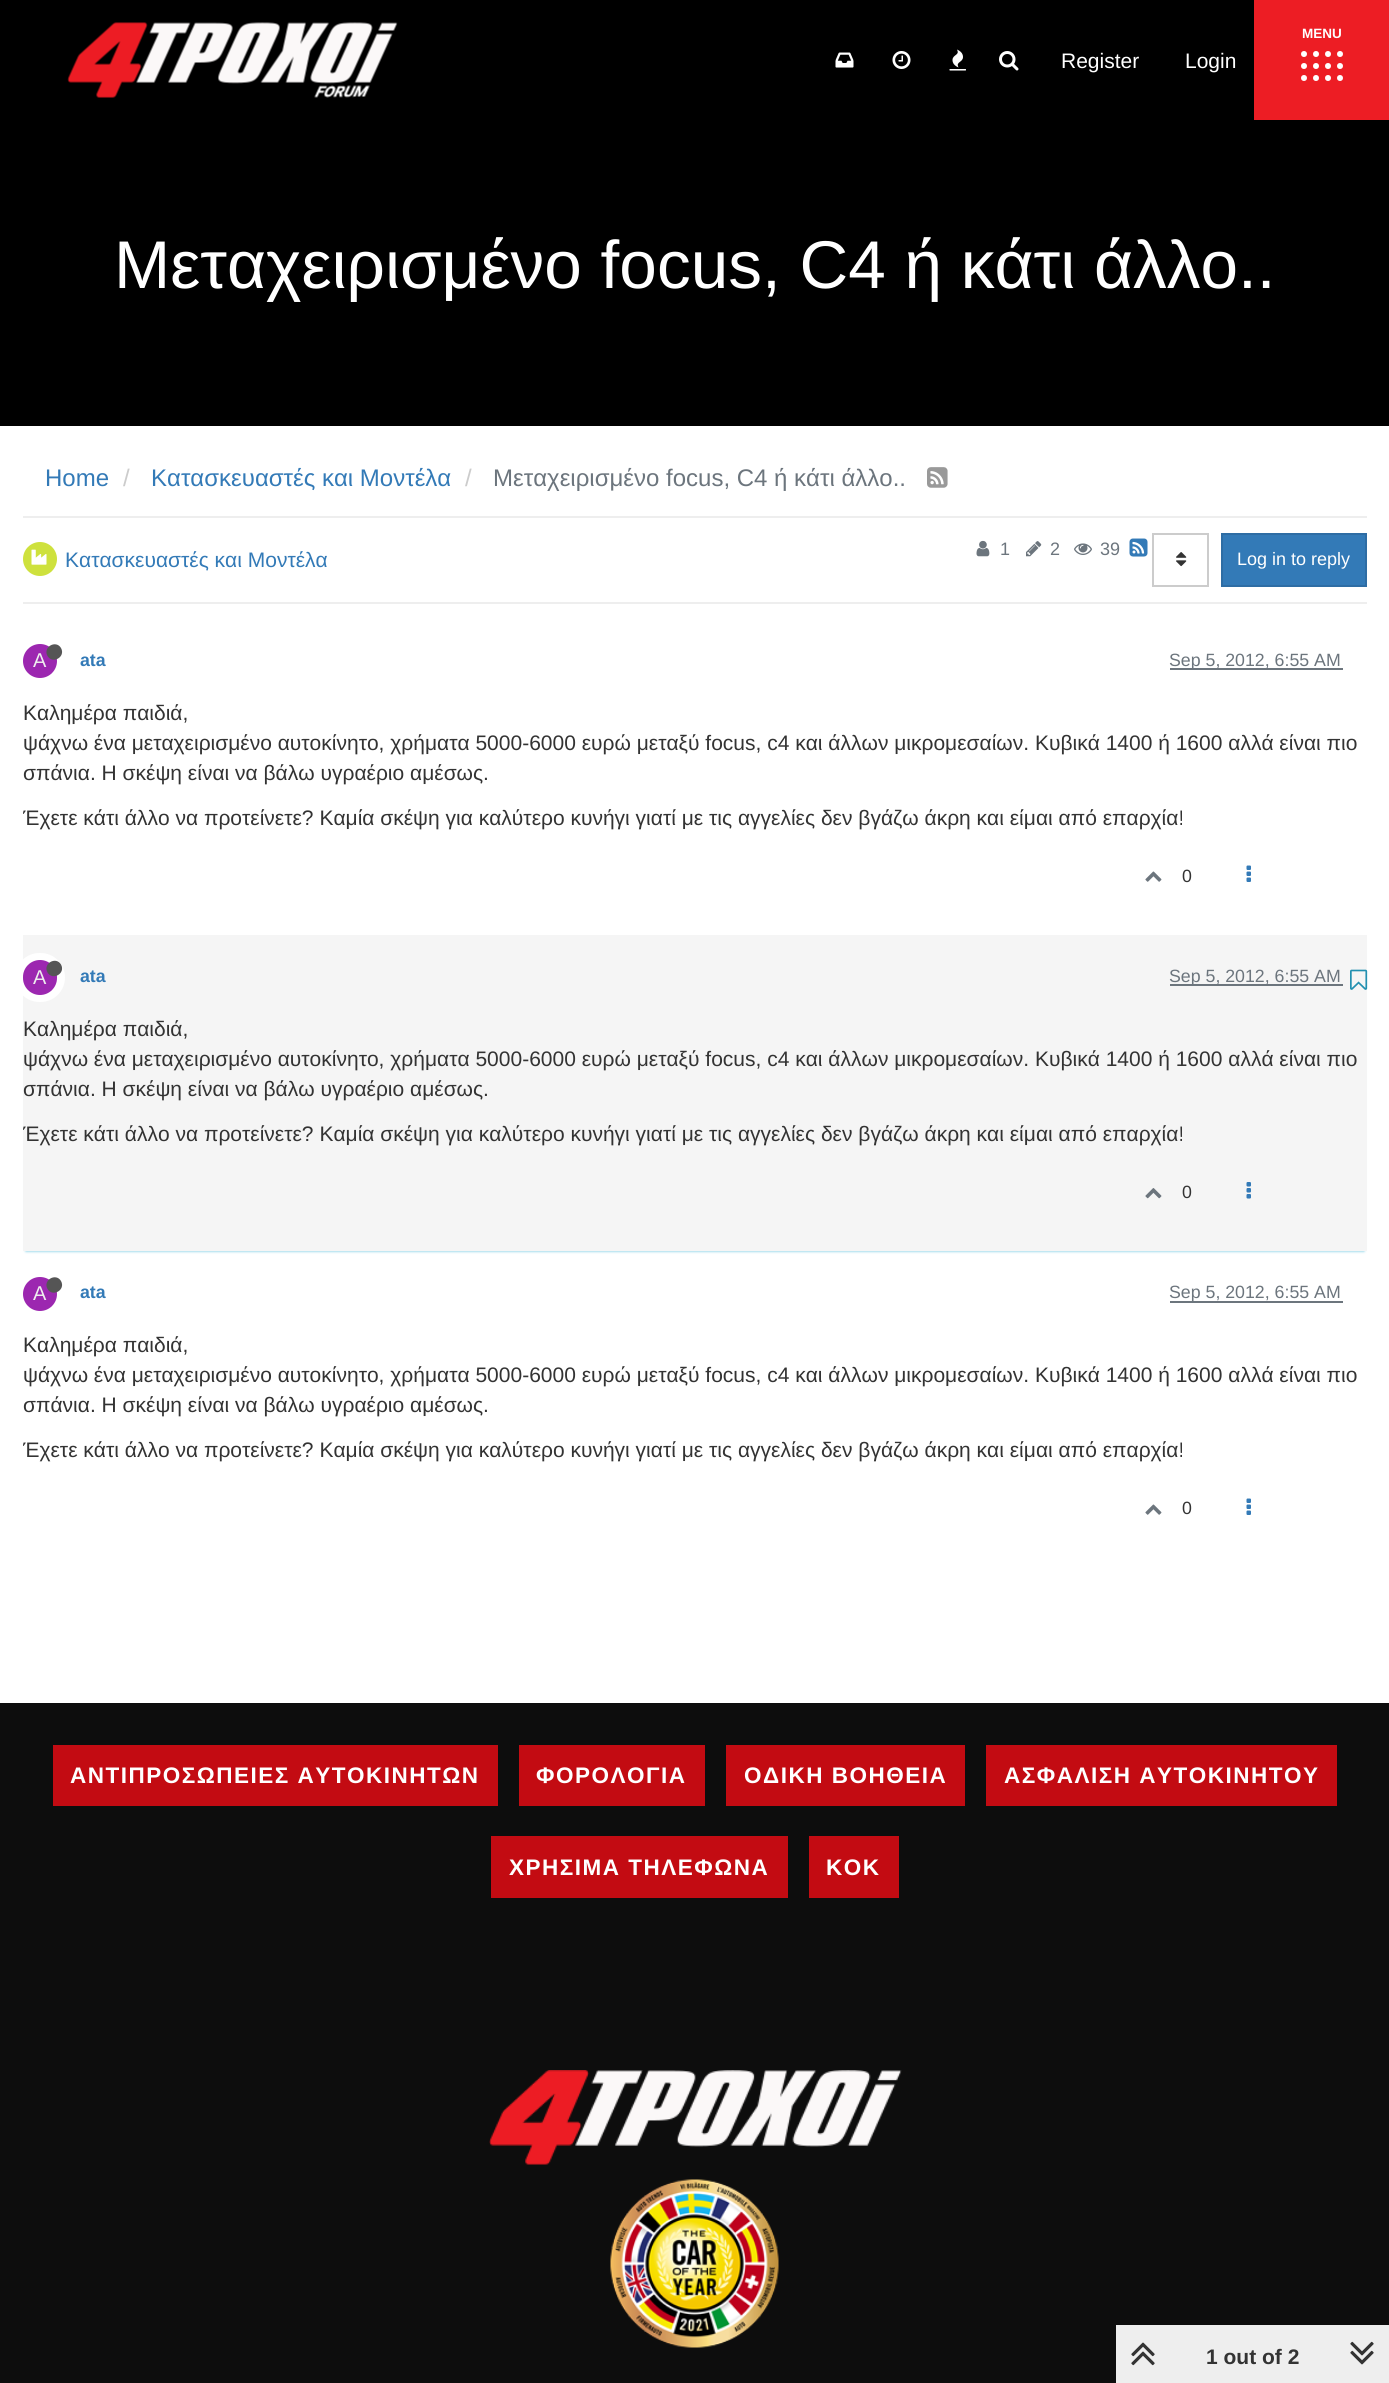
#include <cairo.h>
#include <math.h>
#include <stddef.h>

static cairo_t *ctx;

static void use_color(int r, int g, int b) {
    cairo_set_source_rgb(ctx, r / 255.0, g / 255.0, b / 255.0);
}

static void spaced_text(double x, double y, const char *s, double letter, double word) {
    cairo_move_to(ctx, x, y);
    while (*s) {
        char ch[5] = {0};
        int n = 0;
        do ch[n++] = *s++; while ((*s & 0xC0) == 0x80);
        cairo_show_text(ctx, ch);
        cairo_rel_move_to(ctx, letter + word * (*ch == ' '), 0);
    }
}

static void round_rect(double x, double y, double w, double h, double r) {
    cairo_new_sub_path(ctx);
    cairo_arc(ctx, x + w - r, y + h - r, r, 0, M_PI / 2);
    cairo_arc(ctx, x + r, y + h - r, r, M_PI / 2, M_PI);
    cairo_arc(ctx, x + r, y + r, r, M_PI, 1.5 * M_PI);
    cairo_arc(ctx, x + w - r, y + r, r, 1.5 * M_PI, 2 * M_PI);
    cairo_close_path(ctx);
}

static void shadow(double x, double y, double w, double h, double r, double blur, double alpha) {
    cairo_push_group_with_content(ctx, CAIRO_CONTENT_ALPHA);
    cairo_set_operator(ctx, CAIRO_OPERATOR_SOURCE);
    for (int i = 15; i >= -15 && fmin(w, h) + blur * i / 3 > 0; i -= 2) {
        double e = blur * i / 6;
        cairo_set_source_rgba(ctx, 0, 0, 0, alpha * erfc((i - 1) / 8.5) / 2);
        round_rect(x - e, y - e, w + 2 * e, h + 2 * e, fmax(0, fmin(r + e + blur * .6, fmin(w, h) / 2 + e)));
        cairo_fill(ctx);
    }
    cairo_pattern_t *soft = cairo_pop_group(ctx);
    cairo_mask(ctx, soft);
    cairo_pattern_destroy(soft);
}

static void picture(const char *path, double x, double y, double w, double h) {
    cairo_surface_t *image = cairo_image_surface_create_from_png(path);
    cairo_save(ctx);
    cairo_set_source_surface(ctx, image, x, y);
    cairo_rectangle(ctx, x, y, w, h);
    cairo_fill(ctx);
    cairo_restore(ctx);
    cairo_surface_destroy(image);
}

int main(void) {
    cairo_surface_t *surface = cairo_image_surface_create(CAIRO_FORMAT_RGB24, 1389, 2383);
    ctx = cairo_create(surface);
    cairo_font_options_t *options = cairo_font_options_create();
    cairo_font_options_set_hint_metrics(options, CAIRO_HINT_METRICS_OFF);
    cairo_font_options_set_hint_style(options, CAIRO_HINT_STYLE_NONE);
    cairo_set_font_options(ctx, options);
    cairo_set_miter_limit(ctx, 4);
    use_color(255, 255, 255);
    cairo_paint(ctx);
    use_color(0, 0, 0);
    cairo_rectangle(ctx, 0, 0, 1254, 120);
    cairo_fill(ctx);
    picture("img1.png", 67, 22, 331, 76);
    use_color(237, 29, 36);
    cairo_rectangle(ctx, 1254, 0, 135, 120);
    cairo_fill(ctx);
    cairo_select_font_face(ctx, "Liberation Sans", CAIRO_FONT_SLANT_NORMAL, CAIRO_FONT_WEIGHT_BOLD);
    cairo_set_font_size(ctx, 13.5);
    use_color(255, 255, 255);
    cairo_move_to(ctx, 1302, 38);
    cairo_show_text(ctx, "MENU");
    cairo_new_path(ctx);
    cairo_arc(ctx, 1304, 54, 3, 0, 2 * M_PI);
    cairo_fill(ctx);
    cairo_arc(ctx, 1316, 54, 3, 0, 2 * M_PI);
    cairo_fill(ctx);
    cairo_arc(ctx, 1328, 54, 3, 0, 2 * M_PI);
    cairo_fill(ctx);
    cairo_arc(ctx, 1340, 54, 3, 0, 2 * M_PI);
    cairo_fill(ctx);
    cairo_arc(ctx, 1304, 66, 3, 0, 2 * M_PI);
    cairo_fill(ctx);
    cairo_arc(ctx, 1316, 66, 3, 0, 2 * M_PI);
    cairo_fill(ctx);
    cairo_arc(ctx, 1328, 66, 3, 0, 2 * M_PI);
    cairo_fill(ctx);
    cairo_arc(ctx, 1340, 66, 3, 0, 2 * M_PI);
    cairo_fill(ctx);
    cairo_arc(ctx, 1304, 78, 3, 0, 2 * M_PI);
    cairo_fill(ctx);
    cairo_arc(ctx, 1316, 78, 3, 0, 2 * M_PI);
    cairo_fill(ctx);
    cairo_arc(ctx, 1328, 78, 3, 0, 2 * M_PI);
    cairo_fill(ctx);
    cairo_arc(ctx, 1340, 78, 3, 0, 2 * M_PI);
    cairo_fill(ctx);
    picture("img2.png", 835, 52, 19, 16);
    picture("img3.png", 892, 51, 19, 18);
    picture("img4.png", 949, 49, 17, 22);
    picture("img5.png", 999, 51, 20, 20);
    cairo_select_font_face(ctx, "Liberation Sans", CAIRO_FONT_SLANT_NORMAL, CAIRO_FONT_WEIGHT_NORMAL);
    cairo_set_font_size(ctx, 21);
    cairo_move_to(ctx, 1061, 68);
    cairo_show_text(ctx, "Register");
    cairo_move_to(ctx, 1185, 68);
    cairo_show_text(ctx, "Login");
    use_color(0, 0, 0);
    cairo_rectangle(ctx, 0, 120, 1389, 306);
    cairo_fill(ctx);
    cairo_set_font_size(ctx, 67.5);
    use_color(255, 255, 255);
    cairo_move_to(ctx, 114, 288);
    cairo_show_text(ctx, "Μεταχειρισμένο focus, C4 ή κάτι άλλο..");
    cairo_set_font_size(ctx, 24);
    use_color(51, 122, 183);
    cairo_move_to(ctx, 45, 486);
    cairo_show_text(ctx, "Home");
    use_color(204, 204, 204);
    cairo_move_to(ctx, 123, 486);
    cairo_show_text(ctx, "/");
    use_color(51, 122, 183);
    cairo_move_to(ctx, 151, 486);
    cairo_show_text(ctx, "Κατασκευαστές και Μοντέλα");
    use_color(204, 204, 204);
    cairo_move_to(ctx, 465, 486);
    cairo_show_text(ctx, "/");
    use_color(108, 117, 125);
    cairo_move_to(ctx, 493, 486);
    cairo_show_text(ctx, "Μεταχειρισμένο focus, C4 ή κάτι άλλο..");
    picture("img6.png", 927, 467, 21, 21);
    use_color(238, 238, 238);
    cairo_rectangle(ctx, 23, 516, 1344, 2);
    cairo_fill(ctx);
    cairo_rectangle(ctx, 23, 602, 1344, 2);
    cairo_fill(ctx);
    use_color(206, 225, 61);
    cairo_arc(ctx, 40, 559, 17, 0, 2 * M_PI);
    cairo_fill(ctx);
    picture("img7.png", 31, 549, 16, 16);
    cairo_set_font_size(ctx, 21);
    use_color(51, 122, 183);
    cairo_move_to(ctx, 65, 567);
    cairo_show_text(ctx, "Κατασκευαστές και Μοντέλα");
    picture("img8.png", 976, 540, 14, 17);
    cairo_set_font_size(ctx, 18);
    use_color(108, 117, 125);
    cairo_move_to(ctx, 1000, 555);
    cairo_show_text(ctx, "1");
    picture("img9.png", 1026, 541, 16, 16);
    cairo_move_to(ctx, 1050, 555);
    cairo_show_text(ctx, "2");
    picture("img10.png", 1074, 543, 18, 12);
    cairo_move_to(ctx, 1100, 555);
    cairo_show_text(ctx, "39");
    picture("img11.png", 1129, 538, 19, 19);
    cairo_rectangle(ctx, 1153, 534, 55, 52);
    use_color(204, 204, 204);
    cairo_stroke(ctx);
    picture("img12.png", 1176, 552, 11, 15);
    use_color(51, 122, 183);
    cairo_rectangle(ctx, 1222, 534, 144, 52);
    cairo_fill_preserve(ctx);
    use_color(46, 109, 164);
    cairo_stroke(ctx);
    use_color(255, 255, 255);
    cairo_move_to(ctx, 1237, 565);
    cairo_show_text(ctx, "Log in to reply");
    use_color(156, 39, 176);
    cairo_new_path(ctx);
    cairo_arc(ctx, 40, 661, 17, 0, 2 * M_PI);
    cairo_fill(ctx);
    cairo_set_font_size(ctx, 20);
    use_color(238, 238, 238);
    cairo_move_to(ctx, 33, 667);
    cairo_show_text(ctx, "A");
    use_color(85, 85, 85);
    cairo_new_path(ctx);
    cairo_move_to(ctx, 61, 648);
    cairo_curve_to(ctx, 66, 657, 52.5, 664.5, 47.5, 656);
    cairo_curve_to(ctx, 42.5, 647, 56, 639.5, 61, 648);
    cairo_close_path(ctx);
    cairo_fill(ctx);
    cairo_select_font_face(ctx, "Liberation Sans", CAIRO_FONT_SLANT_NORMAL, CAIRO_FONT_WEIGHT_BOLD);
    cairo_set_font_size(ctx, 17.75);
    use_color(51, 122, 183);
    cairo_move_to(ctx, 80, 666);
    cairo_show_text(ctx, "ata");
    use_color(108, 117, 125);
    cairo_rectangle(ctx, 1170, 668, 173, 2);
    cairo_fill(ctx);
    cairo_select_font_face(ctx, "Liberation Sans", CAIRO_FONT_SLANT_NORMAL, CAIRO_FONT_WEIGHT_NORMAL);
    cairo_move_to(ctx, 1169, 666);
    cairo_show_text(ctx, "Sep 5, 2012, 6:55 AM");
    cairo_set_font_size(ctx, 21);
    use_color(51, 51, 51);
    cairo_move_to(ctx, 23, 720);
    cairo_show_text(ctx, "Καλημέρα παιδιά,");
    cairo_move_to(ctx, 23, 750);
    cairo_show_text(ctx, "ψάχνω ένα μεταχειρισμένο αυτοκίνητο, χρήματα 5000-6000 ευρώ μεταξύ focus, c4 και άλλων μικρομεσαίων. Κυβικά 1400 ή 1600 αλλά είναι πιο");
    cairo_move_to(ctx, 23, 780);
    cairo_show_text(ctx, "σπάνια. Η σκέψη είναι να βάλω υγραέριο αμέσως.");
    cairo_save(ctx);
    cairo_rectangle(ctx, 23, 698, 1344, 151);
    cairo_clip(ctx);
    cairo_move_to(ctx, 23, 825);
    cairo_show_text(ctx, "Έχετε κάτι άλλο να προτείνετε? Καμία σκέψη για καλύτερο κυνήγι γιατί με τις αγγελίες δεν βγάζω άκρη και είμαι από επαρχία!");
    cairo_restore(ctx);
    picture("img13.png", 1145, 871, 17, 11);
    cairo_set_font_size(ctx, 17.75);
    cairo_move_to(ctx, 1182, 882);
    cairo_show_text(ctx, "0");
    picture("img14.png", 1246, 865, 5, 17);
    use_color(91, 192, 222);
    shadow(26, 941, 1338, 310, 0, 1.5, 1);
    use_color(245, 245, 245);
    cairo_rectangle(ctx, 23, 935, 1344, 316);
    cairo_fill(ctx);
    round_rect(19, 957, 42, 41, 20.5);
    use_color(255, 255, 255);
    cairo_set_line_width(ctx, 8);
    cairo_stroke(ctx);
    use_color(156, 39, 176);
    round_rect(23, 960, 34, 35, 17);
    cairo_fill(ctx);
    cairo_set_font_size(ctx, 20);
    use_color(238, 238, 238);
    cairo_move_to(ctx, 33, 984);
    cairo_show_text(ctx, "A");
    use_color(85, 85, 85);
    cairo_new_path(ctx);
    cairo_move_to(ctx, 61, 964.5);
    cairo_curve_to(ctx, 66, 973.5, 52.5, 981, 47.5, 972.5);
    cairo_curve_to(ctx, 42.5, 963.5, 56, 956, 61, 964.5);
    cairo_close_path(ctx);
    cairo_fill(ctx);
    cairo_select_font_face(ctx, "Liberation Sans", CAIRO_FONT_SLANT_NORMAL, CAIRO_FONT_WEIGHT_BOLD);
    cairo_set_font_size(ctx, 17.75);
    use_color(51, 122, 183);
    cairo_move_to(ctx, 80, 982);
    cairo_show_text(ctx, "ata");
    use_color(108, 117, 125);
    cairo_rectangle(ctx, 1170, 984, 173, 2);
    cairo_fill(ctx);
    cairo_select_font_face(ctx, "Liberation Sans", CAIRO_FONT_SLANT_NORMAL, CAIRO_FONT_WEIGHT_NORMAL);
    cairo_move_to(ctx, 1169, 982);
    cairo_show_text(ctx, "Sep 5, 2012, 6:55 AM");
    picture("img15.png", 1350, 969, 18, 21);
    cairo_set_font_size(ctx, 21);
    use_color(51, 51, 51);
    cairo_move_to(ctx, 23, 1036);
    cairo_show_text(ctx, "Καλημέρα παιδιά,");
    cairo_move_to(ctx, 23, 1066);
    cairo_show_text(ctx, "ψάχνω ένα μεταχειρισμένο αυτοκίνητο, χρήματα 5000-6000 ευρώ μεταξύ focus, c4 και άλλων μικρομεσαίων. Κυβικά 1400 ή 1600 αλλά είναι πιο");
    cairo_move_to(ctx, 23, 1096);
    cairo_show_text(ctx, "σπάνια. Η σκέψη είναι να βάλω υγραέριο αμέσως.");
    cairo_save(ctx);
    cairo_rectangle(ctx, 23, 1014, 1344, 152);
    cairo_clip(ctx);
    cairo_move_to(ctx, 23, 1141);
    cairo_show_text(ctx, "Έχετε κάτι άλλο να προτείνετε? Καμία σκέψη για καλύτερο κυνήγι γιατί με τις αγγελίες δεν βγάζω άκρη και είμαι από επαρχία!");
    cairo_restore(ctx);
    picture("img16.png", 1145, 1188, 17, 11);
    cairo_set_font_size(ctx, 17.75);
    cairo_move_to(ctx, 1182, 1198);
    cairo_show_text(ctx, "0");
    picture("img17.png", 1246, 1182, 5, 17);
    use_color(156, 39, 176);
    cairo_arc(ctx, 40, 1294, 17, 0, 2 * M_PI);
    cairo_fill(ctx);
    cairo_set_font_size(ctx, 20);
    use_color(238, 238, 238);
    cairo_move_to(ctx, 33, 1300);
    cairo_show_text(ctx, "A");
    use_color(85, 85, 85);
    cairo_new_path(ctx);
    cairo_move_to(ctx, 61, 1281);
    cairo_curve_to(ctx, 66, 1290, 52.5, 1297.5, 47.5, 1289);
    cairo_curve_to(ctx, 42.5, 1280, 56, 1272.5, 61, 1281);
    cairo_close_path(ctx);
    cairo_fill(ctx);
    cairo_select_font_face(ctx, "Liberation Sans", CAIRO_FONT_SLANT_NORMAL, CAIRO_FONT_WEIGHT_BOLD);
    cairo_set_font_size(ctx, 17.75);
    use_color(51, 122, 183);
    cairo_move_to(ctx, 80, 1298);
    cairo_show_text(ctx, "ata");
    use_color(108, 117, 125);
    cairo_rectangle(ctx, 1170, 1301, 173, 2);
    cairo_fill(ctx);
    cairo_select_font_face(ctx, "Liberation Sans", CAIRO_FONT_SLANT_NORMAL, CAIRO_FONT_WEIGHT_NORMAL);
    cairo_move_to(ctx, 1169, 1298);
    cairo_show_text(ctx, "Sep 5, 2012, 6:55 AM");
    cairo_set_font_size(ctx, 21);
    use_color(51, 51, 51);
    cairo_move_to(ctx, 23, 1352);
    cairo_show_text(ctx, "Καλημέρα παιδιά,");
    cairo_move_to(ctx, 23, 1382);
    cairo_show_text(ctx, "ψάχνω ένα μεταχειρισμένο αυτοκίνητο, χρήματα 5000-6000 ευρώ μεταξύ focus, c4 και άλλων μικρομεσαίων. Κυβικά 1400 ή 1600 αλλά είναι πιο");
    cairo_move_to(ctx, 23, 1412);
    cairo_show_text(ctx, "σπάνια. Η σκέψη είναι να βάλω υγραέριο αμέσως.");
    cairo_save(ctx);
    cairo_rectangle(ctx, 23, 1331, 1344, 151);
    cairo_clip(ctx);
    cairo_move_to(ctx, 23, 1457);
    cairo_show_text(ctx, "Έχετε κάτι άλλο να προτείνετε? Καμία σκέψη για καλύτερο κυνήγι γιατί με τις αγγελίες δεν βγάζω άκρη και είμαι από επαρχία!");
    cairo_restore(ctx);
    picture("img13.png", 1145, 1504, 17, 11);
    cairo_set_font_size(ctx, 17.75);
    cairo_move_to(ctx, 1182, 1514);
    cairo_show_text(ctx, "0");
    picture("img14.png", 1246, 1498, 5, 17);
    use_color(13, 13, 13);
    cairo_rectangle(ctx, 0, 1703, 1389, 680);
    cairo_fill(ctx);
    use_color(238, 238, 238);
    cairo_rectangle(ctx, 1116, 2325, 273, 58);
    cairo_fill(ctx);
    picture("img18.png", 1131, 2342, 24, 24);
    cairo_select_font_face(ctx, "Liberation Sans", CAIRO_FONT_SLANT_NORMAL, CAIRO_FONT_WEIGHT_BOLD);
    cairo_set_font_size(ctx, 21);
    use_color(51, 51, 51);
    cairo_move_to(ctx, 1206, 2364);
    cairo_show_text(ctx, "1 out of 2");
    picture("img19.png", 1350, 2341, 24, 24);
    use_color(195, 11, 18);
    cairo_rectangle(ctx, 53, 1745, 445, 61);
    cairo_fill(ctx);
    cairo_set_font_size(ctx, 22.5);
    use_color(255, 255, 255);
    spaced_text(70, 1783, "ΑΝΤΙΠΡΟΣΩΠΕΙΕΣ ΑΥΤΟΚΙΝΗΤΩΝ", 1.5, 0);
    use_color(195, 11, 18);
    cairo_rectangle(ctx, 519, 1745, 186, 61);
    cairo_fill(ctx);
    use_color(255, 255, 255);
    spaced_text(536, 1783, "ΦΟΡΟΛΟΓΙΑ", 1.5, 0);
    use_color(195, 11, 18);
    cairo_rectangle(ctx, 726, 1745, 239, 61);
    cairo_fill(ctx);
    use_color(255, 255, 255);
    spaced_text(744, 1783, "ΟΔΙΚΗ ΒΟΗΘΕΙΑ", 1.5, 0);
    use_color(195, 11, 18);
    cairo_rectangle(ctx, 986, 1745, 351, 61);
    cairo_fill(ctx);
    use_color(255, 255, 255);
    spaced_text(1004, 1783, "ΑΣΦΑΛΙΣΗ ΑΥΤΟΚΙΝΗΤΟΥ", 1.5, 0);
    use_color(195, 11, 18);
    cairo_rectangle(ctx, 491, 1836, 297, 62);
    cairo_fill(ctx);
    use_color(255, 255, 255);
    spaced_text(509, 1875, "ΧΡΗΣΙΜΑ ΤΗΛΕΦΩΝΑ", 1.5, 0);
    use_color(195, 11, 18);
    cairo_rectangle(ctx, 809, 1836, 90, 62);
    cairo_fill(ctx);
    use_color(255, 255, 255);
    spaced_text(826, 1875, "ΚΟΚ", 1.5, 0);
    picture("img20.png", 489, 2070, 413, 95);
    picture("img21.png", 610, 2179, 169, 169);
    cairo_surface_write_to_png(surface, "result.png");
    cairo_font_options_destroy(options);
    cairo_destroy(ctx);
    cairo_surface_destroy(surface);
    return 0;
}
